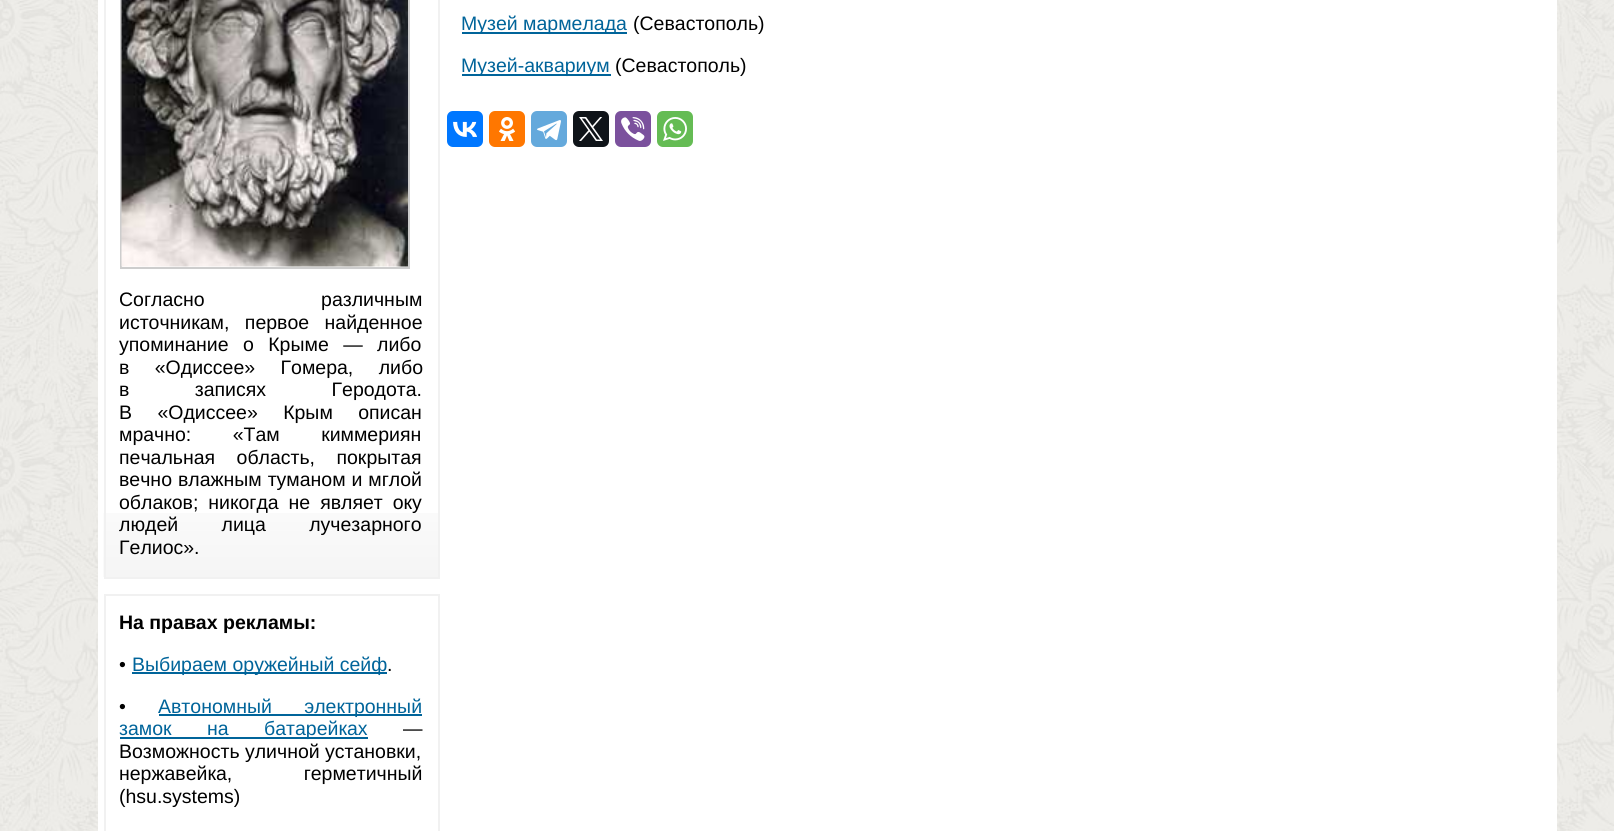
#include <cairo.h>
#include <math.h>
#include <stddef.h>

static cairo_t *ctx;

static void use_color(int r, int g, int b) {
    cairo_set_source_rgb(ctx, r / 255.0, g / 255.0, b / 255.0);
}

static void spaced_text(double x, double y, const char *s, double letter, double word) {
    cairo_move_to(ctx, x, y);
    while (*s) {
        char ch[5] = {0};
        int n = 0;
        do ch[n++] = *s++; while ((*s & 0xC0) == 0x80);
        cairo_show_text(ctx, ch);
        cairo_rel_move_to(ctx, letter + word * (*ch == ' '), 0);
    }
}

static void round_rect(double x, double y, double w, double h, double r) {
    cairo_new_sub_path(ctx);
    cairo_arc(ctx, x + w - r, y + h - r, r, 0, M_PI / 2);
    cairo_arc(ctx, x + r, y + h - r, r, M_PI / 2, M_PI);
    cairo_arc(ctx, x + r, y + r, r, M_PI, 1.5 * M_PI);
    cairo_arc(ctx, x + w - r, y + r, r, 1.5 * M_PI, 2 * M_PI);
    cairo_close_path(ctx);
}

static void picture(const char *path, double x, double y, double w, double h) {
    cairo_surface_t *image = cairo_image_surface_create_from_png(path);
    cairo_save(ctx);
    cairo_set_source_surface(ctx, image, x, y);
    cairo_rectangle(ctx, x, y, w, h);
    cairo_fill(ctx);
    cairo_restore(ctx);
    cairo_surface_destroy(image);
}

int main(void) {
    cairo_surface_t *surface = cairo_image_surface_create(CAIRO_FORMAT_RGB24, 1614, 831);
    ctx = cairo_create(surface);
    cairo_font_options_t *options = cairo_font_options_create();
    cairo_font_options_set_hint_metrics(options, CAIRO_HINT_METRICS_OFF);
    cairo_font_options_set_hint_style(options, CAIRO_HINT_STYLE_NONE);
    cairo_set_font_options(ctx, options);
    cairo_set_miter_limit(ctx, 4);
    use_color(255, 255, 255);
    cairo_paint(ctx);
    picture("img1.png", 0, 0, 1614, 831);
    use_color(255, 255, 255);
    cairo_rectangle(ctx, 98, 0, 1459, 831);
    cairo_fill(ctx);
    use_color(0, 100, 154);
    cairo_rectangle(ctx, 462, 32, 165, 2);
    cairo_fill(ctx);
    cairo_select_font_face(ctx, "Liberation Sans", CAIRO_FONT_SLANT_NORMAL, CAIRO_FONT_WEIGHT_NORMAL);
    cairo_set_font_size(ctx, 19.5);
    cairo_move_to(ctx, 461, 30);
    cairo_show_text(ctx, "Музей мармелада");
    use_color(0, 0, 0);
    cairo_move_to(ctx, 633, 30);
    cairo_show_text(ctx, "(Севастополь)");
    use_color(0, 100, 154);
    cairo_rectangle(ctx, 462, 74, 149, 2);
    cairo_fill(ctx);
    cairo_move_to(ctx, 461, 72);
    cairo_show_text(ctx, "Музей-аквариум");
    use_color(0, 0, 0);
    cairo_move_to(ctx, 615, 72);
    cairo_show_text(ctx, "(Севастополь)");
    use_color(0, 119, 255);
    round_rect(447, 111, 36, 36, 6);
    cairo_fill(ctx);
    picture("img2.png", 453, 121, 24, 16);
    use_color(255, 119, 0);
    round_rect(489, 111, 36, 36, 6);
    cairo_fill(ctx);
    picture("img3.png", 499, 117, 17, 24);
    use_color(100, 169, 220);
    round_rect(531, 111, 36, 36, 6);
    cairo_fill(ctx);
    picture("img4.png", 537, 120, 24, 21);
    use_color(15, 20, 25);
    round_rect(573, 111, 36, 36, 6);
    cairo_fill(ctx);
    picture("img5.png", 579, 117, 24, 24);
    use_color(123, 81, 157);
    round_rect(615, 111, 36, 36, 6);
    cairo_fill(ctx);
    picture("img6.png", 621, 117, 24, 24);
    use_color(101, 188, 84);
    round_rect(657, 111, 36, 36, 6);
    cairo_fill(ctx);
    picture("img7.png", 663, 117, 24, 24);
    picture("img8.png", 103, 513, 335, 64);
    cairo_rectangle(ctx, 105, -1, 334, 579);
    use_color(241, 241, 241);
    cairo_stroke(ctx);
    cairo_rectangle(ctx, 121, -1, 288, 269);
    use_color(205, 205, 205);
    cairo_stroke(ctx);
    picture("img9.png", 121, 0, 287, 267);
    use_color(0, 0, 0);
    spaced_text(119, 306, "Согласно различным", 0, 111);
    spaced_text(119, 329, "источникам, первое найденное", 0, 10);
    spaced_text(119, 351, "упоминание о Крыме — либо", 0, 9);
    spaced_text(119, 374, "в «Одиссее» Гомера, либо", 0, 20);
    spaced_text(119, 396, "в записях Геродота.", 0, 60);
    spaced_text(119, 419, "В «Одиссее» Крым описан", 0, 20);
    spaced_text(119, 441, "мрачно: «Там киммериян", 0, 36);
    spaced_text(119, 464, "печальная область, покрытая", 0, 16);
    spaced_text(119, 486, "вечно влажным туманом и мглой", 0, 0.5);
    spaced_text(119, 509, "облаков; никогда не являет оку", 0, 4.5);
    spaced_text(119, 531, "людей лица лучезарного", 0, 38);
    cairo_move_to(ctx, 119, 554);
    cairo_show_text(ctx, "Гелиос».");
    cairo_rectangle(ctx, 105, 595, 334, 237);
    use_color(241, 241, 241);
    cairo_stroke(ctx);
    cairo_select_font_face(ctx, "Liberation Sans", CAIRO_FONT_SLANT_NORMAL, CAIRO_FONT_WEIGHT_BOLD);
    use_color(0, 0, 0);
    cairo_move_to(ctx, 119, 629);
    cairo_show_text(ctx, "На правах рекламы:");
    cairo_select_font_face(ctx, "Liberation Sans", CAIRO_FONT_SLANT_NORMAL, CAIRO_FONT_WEIGHT_NORMAL);
    cairo_move_to(ctx, 119, 671);
    cairo_show_text(ctx, "•");
    use_color(0, 100, 154);
    cairo_rectangle(ctx, 132, 672, 255, 2);
    cairo_fill(ctx);
    cairo_move_to(ctx, 132, 671);
    cairo_show_text(ctx, "Выбираем оружейный сейф");
    use_color(0, 0, 0);
    cairo_move_to(ctx, 387, 671);
    cairo_show_text(ctx, ".");
    cairo_move_to(ctx, 119, 713);
    cairo_show_text(ctx, "•");
    use_color(0, 100, 154);
    cairo_rectangle(ctx, 159, 714, 263, 2);
    cairo_fill(ctx);
    spaced_text(158, 713, "Автономный электронный", 0, 27);
    cairo_rectangle(ctx, 120, 737, 248, 2);
    cairo_fill(ctx);
    spaced_text(119, 735, "замок на батарейках", 0, 30);
    use_color(0, 0, 0);
    cairo_move_to(ctx, 403, 735);
    cairo_show_text(ctx, "—");
    cairo_move_to(ctx, 119, 758);
    cairo_show_text(ctx, "Возможность уличной установки,");
    spaced_text(119, 780, "нержавейка, герметичный", 0, 66);
    cairo_move_to(ctx, 119, 803);
    cairo_show_text(ctx, "(hsu.systems)");
    cairo_surface_write_to_png(surface, "result.png");
    cairo_font_options_destroy(options);
    cairo_destroy(ctx);
    cairo_surface_destroy(surface);
    return 0;
}
